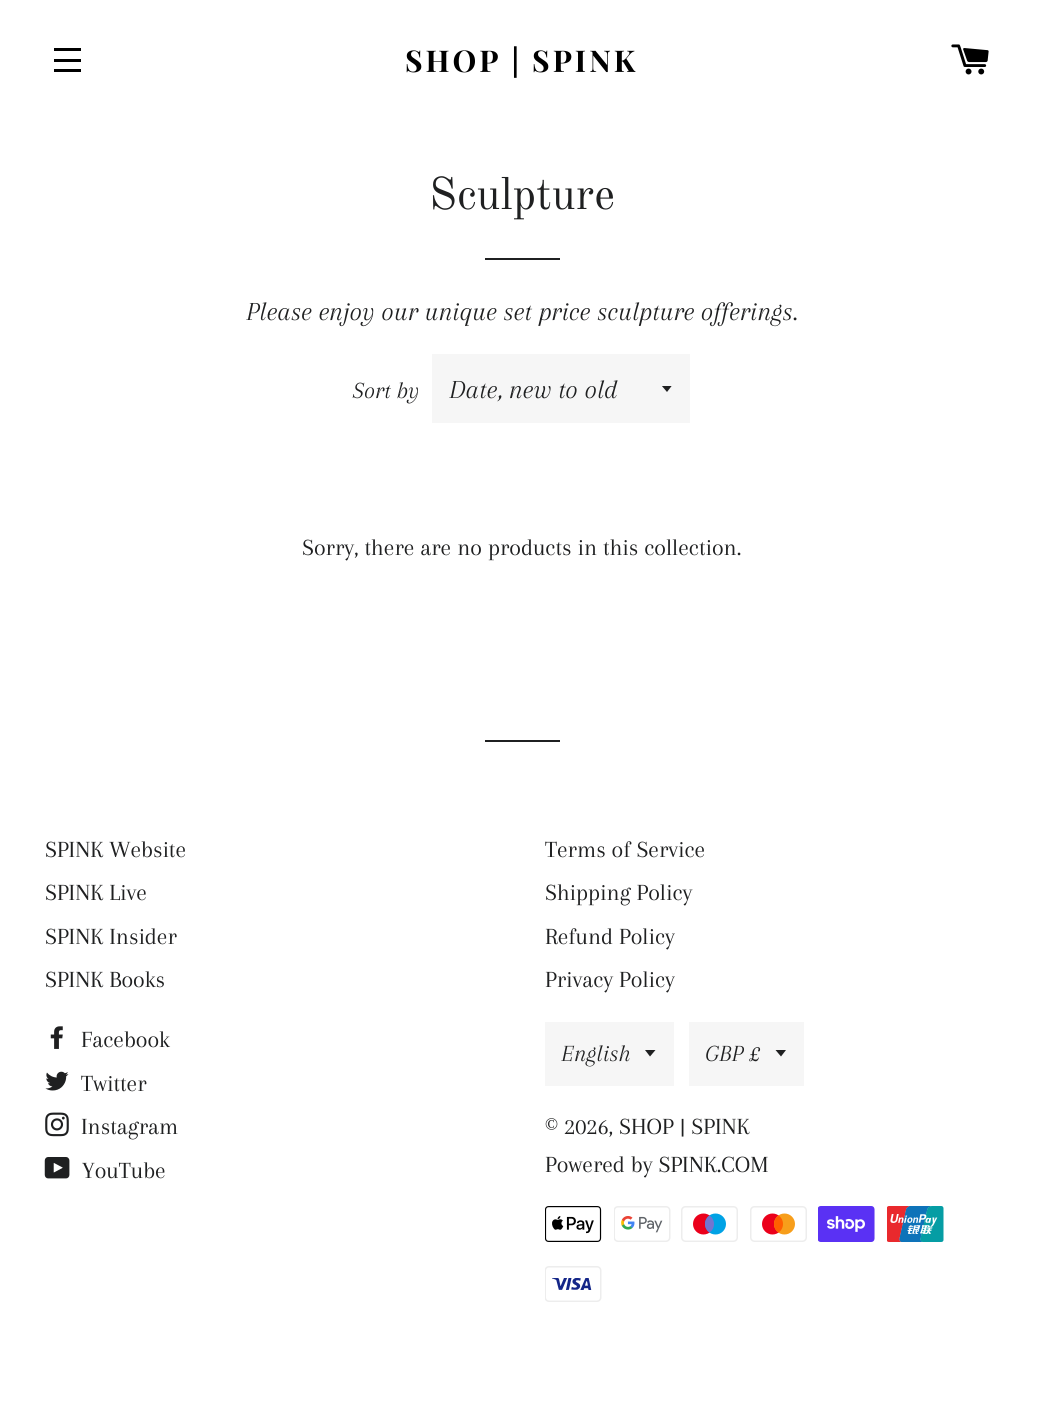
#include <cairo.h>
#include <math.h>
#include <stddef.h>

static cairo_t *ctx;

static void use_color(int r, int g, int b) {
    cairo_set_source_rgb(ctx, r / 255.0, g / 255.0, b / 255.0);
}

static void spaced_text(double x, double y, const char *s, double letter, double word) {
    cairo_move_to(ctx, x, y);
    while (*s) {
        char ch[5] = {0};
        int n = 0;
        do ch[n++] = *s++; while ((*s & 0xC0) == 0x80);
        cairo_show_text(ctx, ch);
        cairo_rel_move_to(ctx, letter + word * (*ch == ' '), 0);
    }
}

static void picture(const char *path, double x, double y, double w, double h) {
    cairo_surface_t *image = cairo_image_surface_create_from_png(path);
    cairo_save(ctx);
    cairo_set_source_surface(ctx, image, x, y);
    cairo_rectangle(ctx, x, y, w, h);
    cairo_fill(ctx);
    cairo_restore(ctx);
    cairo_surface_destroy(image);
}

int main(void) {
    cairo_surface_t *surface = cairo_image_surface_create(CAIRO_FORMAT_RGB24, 1043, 1427);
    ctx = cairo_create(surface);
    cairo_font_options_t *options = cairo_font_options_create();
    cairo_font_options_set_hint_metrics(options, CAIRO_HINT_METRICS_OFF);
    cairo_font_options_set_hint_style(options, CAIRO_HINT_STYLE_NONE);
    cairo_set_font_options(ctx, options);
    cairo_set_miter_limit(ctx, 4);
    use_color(255, 255, 255);
    cairo_paint(ctx);
    use_color(0, 0, 0);
    cairo_rectangle(ctx, 54, 48, 27, 3);
    cairo_fill(ctx);
    cairo_rectangle(ctx, 54, 59, 27, 3);
    cairo_fill(ctx);
    cairo_rectangle(ctx, 54, 69, 27, 3);
    cairo_fill(ctx);
    cairo_select_font_face(ctx, "Playfair Display", CAIRO_FONT_SLANT_NORMAL, CAIRO_FONT_WEIGHT_BOLD);
    cairo_set_font_size(ctx, 30);
    spaced_text(405, 72, "SHOP | SPINK", 3, 0);
    picture("img1.png", 951, 44, 38, 31);
    cairo_select_font_face(ctx, "Old Standard TT", CAIRO_FONT_SLANT_NORMAL, CAIRO_FONT_WEIGHT_NORMAL);
    cairo_set_font_size(ctx, 45);
    use_color(31, 32, 33);
    cairo_move_to(ctx, 429, 209);
    cairo_show_text(ctx, "Sculpture");
    cairo_rectangle(ctx, 485, 258, 75, 2);
    cairo_fill(ctx);
    cairo_select_font_face(ctx, "Arapey", CAIRO_FONT_SLANT_ITALIC, CAIRO_FONT_WEIGHT_NORMAL);
    cairo_set_font_size(ctx, 27);
    cairo_move_to(ctx, 246, 320);
    cairo_show_text(ctx, "Please enjoy our unique set price sculpture offerings.");
    cairo_set_font_size(ctx, 24);
    cairo_move_to(ctx, 353, 398);
    cairo_show_text(ctx, "Sort by");
    use_color(246, 246, 246);
    cairo_rectangle(ctx, 432, 354, 258, 69);
    cairo_fill(ctx);
    cairo_save(ctx);
    cairo_rectangle(ctx, 662, 386, 12, 7);
    cairo_clip(ctx);
    use_color(31, 32, 33);
    cairo_new_path(ctx);
    cairo_move_to(ctx, 661.5, 385.5);
    cairo_line_to(ctx, 667, 392);
    cairo_line_to(ctx, 672, 385.5);
    cairo_close_path(ctx);
    cairo_fill(ctx);
    cairo_restore(ctx);
    cairo_set_font_size(ctx, 27);
    use_color(31, 32, 33);
    cairo_move_to(ctx, 449, 398);
    cairo_show_text(ctx, "Date, new to old");
    cairo_select_font_face(ctx, "Arapey", CAIRO_FONT_SLANT_NORMAL, CAIRO_FONT_WEIGHT_NORMAL);
    cairo_set_font_size(ctx, 24);
    cairo_move_to(ctx, 302, 555);
    cairo_show_text(ctx, "Sorry, there are no products in this collection.");
    cairo_rectangle(ctx, 485, 740, 75, 2);
    cairo_fill(ctx);
    cairo_move_to(ctx, 45, 857);
    cairo_show_text(ctx, "SPINK Website");
    cairo_move_to(ctx, 45, 900);
    cairo_show_text(ctx, "SPINK Live");
    cairo_move_to(ctx, 45, 944);
    cairo_show_text(ctx, "SPINK Insider");
    cairo_move_to(ctx, 45, 987);
    cairo_show_text(ctx, "SPINK Books");
    cairo_move_to(ctx, 545, 857);
    cairo_show_text(ctx, "Terms of Service");
    cairo_move_to(ctx, 545, 900);
    cairo_show_text(ctx, "Shipping Policy");
    cairo_move_to(ctx, 545, 944);
    cairo_show_text(ctx, "Refund Policy");
    cairo_move_to(ctx, 545, 987);
    cairo_show_text(ctx, "Privacy Policy");
    picture("img2.png", 50, 1026, 13, 23);
    cairo_move_to(ctx, 81, 1047);
    cairo_show_text(ctx, "Facebook");
    picture("img3.png", 45, 1071, 24, 20);
    cairo_move_to(ctx, 81, 1091);
    cairo_show_text(ctx, "Twitter");
    picture("img4.png", 45, 1112, 24, 25);
    cairo_move_to(ctx, 81, 1134);
    cairo_show_text(ctx, "Instagram");
    picture("img5.png", 44, 1157, 26, 22);
    cairo_move_to(ctx, 82, 1178);
    cairo_show_text(ctx, "YouTube");
    use_color(246, 246, 246);
    cairo_rectangle(ctx, 545, 1022, 129, 64);
    cairo_fill(ctx);
    use_color(31, 32, 33);
    cairo_new_path(ctx);
    cairo_move_to(ctx, 645, 1050);
    cairo_line_to(ctx, 650, 1056.5);
    cairo_line_to(ctx, 655.5, 1050);
    cairo_close_path(ctx);
    cairo_fill(ctx);
    cairo_select_font_face(ctx, "Arapey", CAIRO_FONT_SLANT_ITALIC, CAIRO_FONT_WEIGHT_NORMAL);
    cairo_move_to(ctx, 561, 1061);
    cairo_show_text(ctx, "English");
    use_color(246, 246, 246);
    cairo_rectangle(ctx, 689, 1022, 115, 64);
    cairo_fill(ctx);
    use_color(31, 32, 33);
    cairo_new_path(ctx);
    cairo_move_to(ctx, 775.5, 1050);
    cairo_line_to(ctx, 781, 1056.5);
    cairo_line_to(ctx, 786, 1050);
    cairo_close_path(ctx);
    cairo_fill(ctx);
    cairo_move_to(ctx, 705, 1061);
    cairo_show_text(ctx, "GBP £");
    cairo_select_font_face(ctx, "Arapey", CAIRO_FONT_SLANT_NORMAL, CAIRO_FONT_WEIGHT_NORMAL);
    cairo_move_to(ctx, 545, 1134);
    cairo_show_text(ctx, "© 2026, SHOP | SPINK");
    cairo_move_to(ctx, 545, 1172);
    cairo_show_text(ctx, "Powered by SPINK.COM");
    picture("img6.png", 545, 1206, 57, 36);
    picture("img7.png", 614, 1206, 57, 36);
    picture("img8.png", 681, 1206, 57, 36);
    picture("img9.png", 750, 1206, 57, 36);
    picture("img10.png", 818, 1206, 57, 36);
    picture("img11.png", 887, 1206, 57, 36);
    picture("img12.png", 545, 1266, 57, 36);
    cairo_surface_write_to_png(surface, "result.png");
    cairo_font_options_destroy(options);
    cairo_destroy(ctx);
    cairo_surface_destroy(surface);
    return 0;
}
